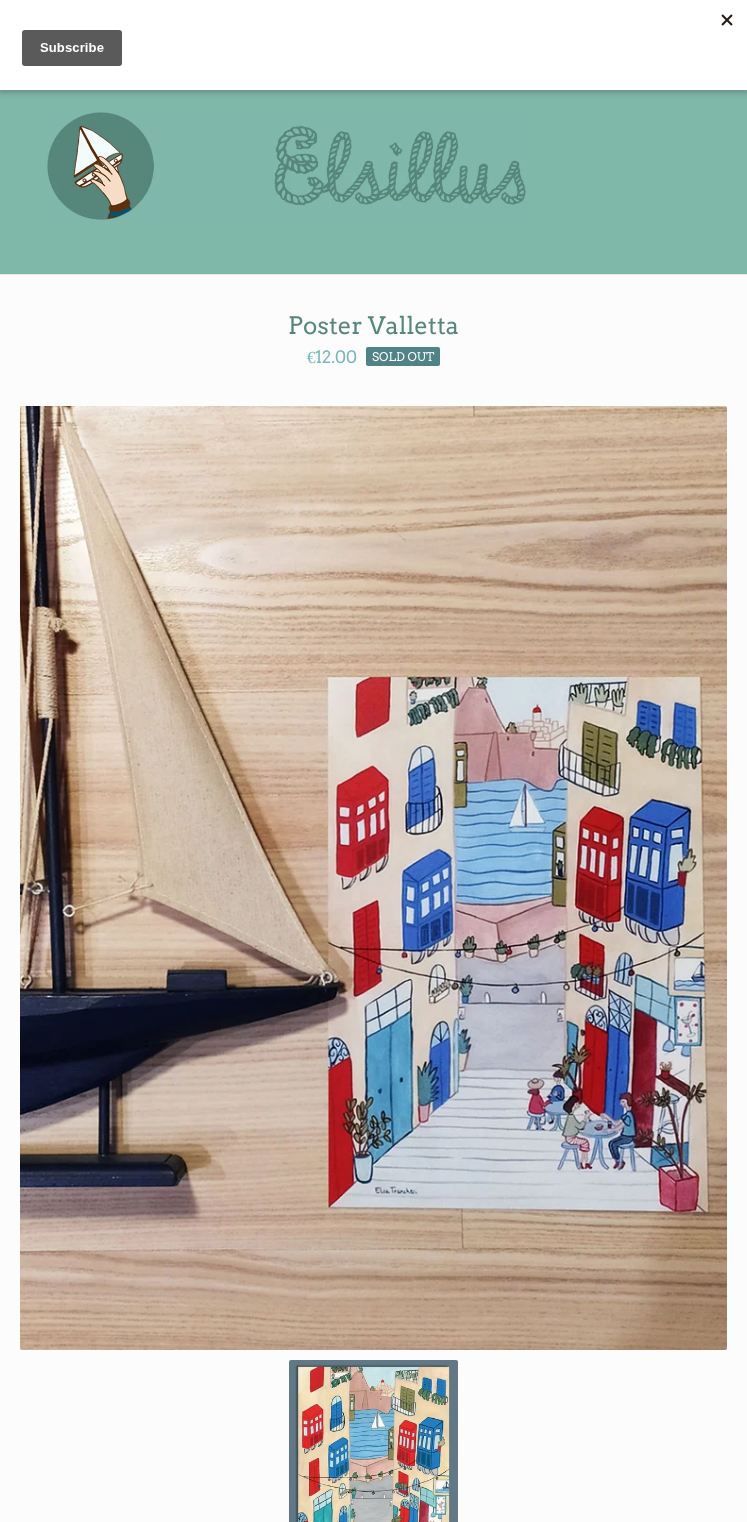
#include <cairo.h>
#include <math.h>
#include <stddef.h>

static cairo_t *ctx;

static void use_color(int r, int g, int b) {
    cairo_set_source_rgb(ctx, r / 255.0, g / 255.0, b / 255.0);
}

static void round_rect(double x, double y, double w, double h, double r) {
    cairo_new_sub_path(ctx);
    cairo_arc(ctx, x + w - r, y + h - r, r, 0, M_PI / 2);
    cairo_arc(ctx, x + r, y + h - r, r, M_PI / 2, M_PI);
    cairo_arc(ctx, x + r, y + r, r, M_PI, 1.5 * M_PI);
    cairo_arc(ctx, x + w - r, y + r, r, 1.5 * M_PI, 2 * M_PI);
    cairo_close_path(ctx);
}

static void shadow(double x, double y, double w, double h, double r, double blur, double alpha) {
    cairo_push_group_with_content(ctx, CAIRO_CONTENT_ALPHA);
    cairo_set_operator(ctx, CAIRO_OPERATOR_SOURCE);
    for (int i = 15; i >= -15 && fmin(w, h) + blur * i / 3 > 0; i -= 2) {
        double e = blur * i / 6;
        cairo_set_source_rgba(ctx, 0, 0, 0, alpha * erfc((i - 1) / 8.5) / 2);
        round_rect(x - e, y - e, w + 2 * e, h + 2 * e, fmax(0, fmin(r + e + blur * .6, fmin(w, h) / 2 + e)));
        cairo_fill(ctx);
    }
    cairo_pattern_t *soft = cairo_pop_group(ctx);
    cairo_mask(ctx, soft);
    cairo_pattern_destroy(soft);
}

static void picture(const char *path, double x, double y, double w, double h) {
    cairo_surface_t *image = cairo_image_surface_create_from_png(path);
    cairo_save(ctx);
    cairo_set_source_surface(ctx, image, x, y);
    cairo_rectangle(ctx, x, y, w, h);
    cairo_fill(ctx);
    cairo_restore(ctx);
    cairo_surface_destroy(image);
}

int main(void) {
    cairo_surface_t *surface = cairo_image_surface_create(CAIRO_FORMAT_RGB24, 747, 1522);
    ctx = cairo_create(surface);
    cairo_font_options_t *options = cairo_font_options_create();
    cairo_font_options_set_hint_metrics(options, CAIRO_HINT_METRICS_OFF);
    cairo_font_options_set_hint_style(options, CAIRO_HINT_STYLE_NONE);
    cairo_set_font_options(ctx, options);
    cairo_set_miter_limit(ctx, 4);
    use_color(252, 252, 252);
    cairo_paint(ctx);
    use_color(127, 183, 169);
    cairo_rectangle(ctx, 0, 90, 747, 184);
    cairo_fill(ctx);
    use_color(0, 0, 0);
    shadow(0, 3, 747, 90, 0, 3, 0.2);
    use_color(255, 255, 255);
    cairo_rectangle(ctx, 0, 0, 747, 90);
    cairo_fill(ctx);
    picture("img1.png", 22, 14, 711, 52);
    use_color(229, 229, 229);
    cairo_rectangle(ctx, 0, 274, 747, 1);
    cairo_fill(ctx);
    picture("img2.png", 47, 112, 479, 109);
    cairo_select_font_face(ctx, "Arvo", CAIRO_FONT_SLANT_NORMAL, CAIRO_FONT_WEIGHT_NORMAL);
    cairo_set_font_size(ctx, 24);
    use_color(87, 134, 125);
    cairo_move_to(ctx, 288, 334);
    cairo_show_text(ctx, "Poster Valletta");
    cairo_select_font_face(ctx, "Liberation Serif", CAIRO_FONT_SLANT_NORMAL, CAIRO_FONT_WEIGHT_NORMAL);
    cairo_set_font_size(ctx, 17);
    use_color(117, 183, 189);
    cairo_move_to(ctx, 307, 363);
    cairo_show_text(ctx, "€");
    cairo_select_font_face(ctx, "Arvo", CAIRO_FONT_SLANT_NORMAL, CAIRO_FONT_WEIGHT_NORMAL);
    cairo_move_to(ctx, 315, 363);
    cairo_show_text(ctx, "12.00");
    use_color(80, 131, 133);
    round_rect(366, 347, 74, 19, 2);
    cairo_fill(ctx);
    cairo_set_font_size(ctx, 12);
    use_color(252, 252, 252);
    cairo_move_to(ctx, 372, 361);
    cairo_show_text(ctx, "SOLD OUT");
    picture("img3.png", 20, 406, 707, 944);
    picture("img4.png", 289, 1360, 169, 162);
    cairo_surface_write_to_png(surface, "result.png");
    cairo_font_options_destroy(options);
    cairo_destroy(ctx);
    cairo_surface_destroy(surface);
    return 0;
}
